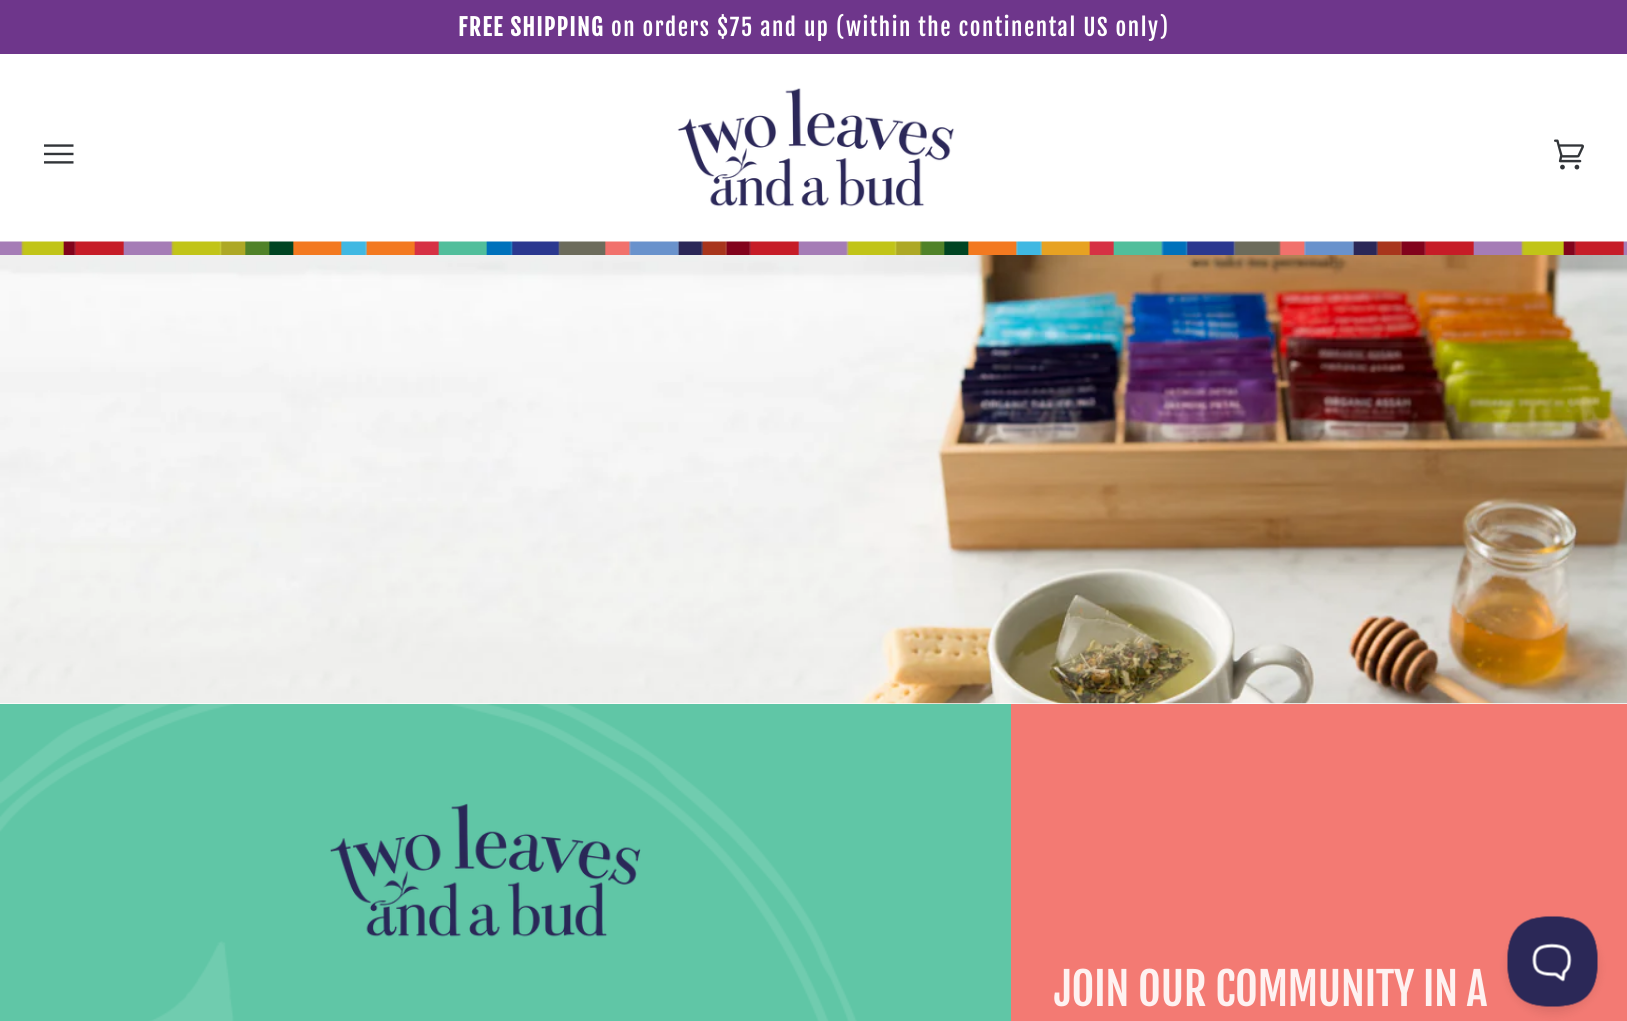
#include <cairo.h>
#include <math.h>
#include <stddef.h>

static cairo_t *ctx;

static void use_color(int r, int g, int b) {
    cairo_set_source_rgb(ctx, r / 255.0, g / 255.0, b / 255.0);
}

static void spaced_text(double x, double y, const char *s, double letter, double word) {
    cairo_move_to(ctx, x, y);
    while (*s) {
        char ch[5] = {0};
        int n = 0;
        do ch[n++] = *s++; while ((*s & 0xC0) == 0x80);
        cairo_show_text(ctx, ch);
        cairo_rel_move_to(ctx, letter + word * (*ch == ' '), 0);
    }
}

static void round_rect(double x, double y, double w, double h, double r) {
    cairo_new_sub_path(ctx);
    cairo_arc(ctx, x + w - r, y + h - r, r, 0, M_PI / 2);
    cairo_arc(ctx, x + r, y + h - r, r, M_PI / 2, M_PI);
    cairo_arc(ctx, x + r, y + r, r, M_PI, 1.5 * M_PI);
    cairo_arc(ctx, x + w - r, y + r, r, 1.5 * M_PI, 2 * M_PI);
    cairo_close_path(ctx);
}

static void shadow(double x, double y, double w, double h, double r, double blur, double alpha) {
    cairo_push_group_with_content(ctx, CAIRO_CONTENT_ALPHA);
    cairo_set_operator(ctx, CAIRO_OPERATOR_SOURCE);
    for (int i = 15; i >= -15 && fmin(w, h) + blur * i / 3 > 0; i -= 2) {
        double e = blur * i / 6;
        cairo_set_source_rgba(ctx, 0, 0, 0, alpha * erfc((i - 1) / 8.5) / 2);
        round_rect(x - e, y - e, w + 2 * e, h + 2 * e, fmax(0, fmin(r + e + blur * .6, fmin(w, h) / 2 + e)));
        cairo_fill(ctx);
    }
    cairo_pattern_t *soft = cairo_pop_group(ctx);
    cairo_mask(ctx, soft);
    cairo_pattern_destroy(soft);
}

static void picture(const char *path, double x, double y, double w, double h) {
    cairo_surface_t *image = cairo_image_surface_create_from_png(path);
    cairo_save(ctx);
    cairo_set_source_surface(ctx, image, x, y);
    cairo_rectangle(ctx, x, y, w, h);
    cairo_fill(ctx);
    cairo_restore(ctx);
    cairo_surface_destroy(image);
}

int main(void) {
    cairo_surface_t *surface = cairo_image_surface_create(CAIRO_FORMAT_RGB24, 1627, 1021);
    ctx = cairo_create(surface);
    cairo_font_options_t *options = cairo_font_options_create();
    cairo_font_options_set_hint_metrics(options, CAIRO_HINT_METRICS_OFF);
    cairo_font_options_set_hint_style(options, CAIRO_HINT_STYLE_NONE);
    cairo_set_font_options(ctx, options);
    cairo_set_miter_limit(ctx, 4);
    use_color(255, 255, 255);
    cairo_paint(ctx);
    use_color(110, 54, 139);
    cairo_rectangle(ctx, 0, 0, 1627, 54);
    cairo_fill(ctx);
    cairo_select_font_face(ctx, "Fjalla One", CAIRO_FONT_SLANT_NORMAL, CAIRO_FONT_WEIGHT_BOLD);
    cairo_set_font_size(ctx, 23.1);
    use_color(255, 255, 255);
    spaced_text(458, 36, "FREE SHIPPING", 1.5, 0);
    cairo_select_font_face(ctx, "Fjalla One", CAIRO_FONT_SLANT_NORMAL, CAIRO_FONT_WEIGHT_NORMAL);
    spaced_text(611, 36, "on orders $75 and up (within the continental US only)", 1.5, 0);
    picture("img1.png", 0, 241, 1627, 14);
    picture("img2.png", 44, 144, 30, 20);
    picture("img3.png", 677, 88, 278, 119);
    picture("img4.png", 1554, 139, 30, 31);
    picture("img5.png", 0, 255, 1627, 449);
    use_color(96, 198, 166);
    cairo_rectangle(ctx, 0, 704, 1011, 317);
    cairo_fill(ctx);
    picture("img6.png", 0, 704, 857, 317);
    picture("img7.png", 330, 803, 311, 134);
    use_color(243, 122, 115);
    cairo_rectangle(ctx, 1011, 704, 616, 317);
    cairo_fill(ctx);
    cairo_set_font_size(ctx, 44.5);
    use_color(254, 242, 241);
    spaced_text(1054, 1006, "JOIN OUR COMMUNITY IN A", -0.6, 0);
    use_color(0, 0, 0);
    shadow(1508, 923, 90, 90, 45, 5, 0.1);
    picture("img8.png", 1507, 916, 91, 91);
    cairo_surface_write_to_png(surface, "result.png");
    cairo_font_options_destroy(options);
    cairo_destroy(ctx);
    cairo_surface_destroy(surface);
    return 0;
}
